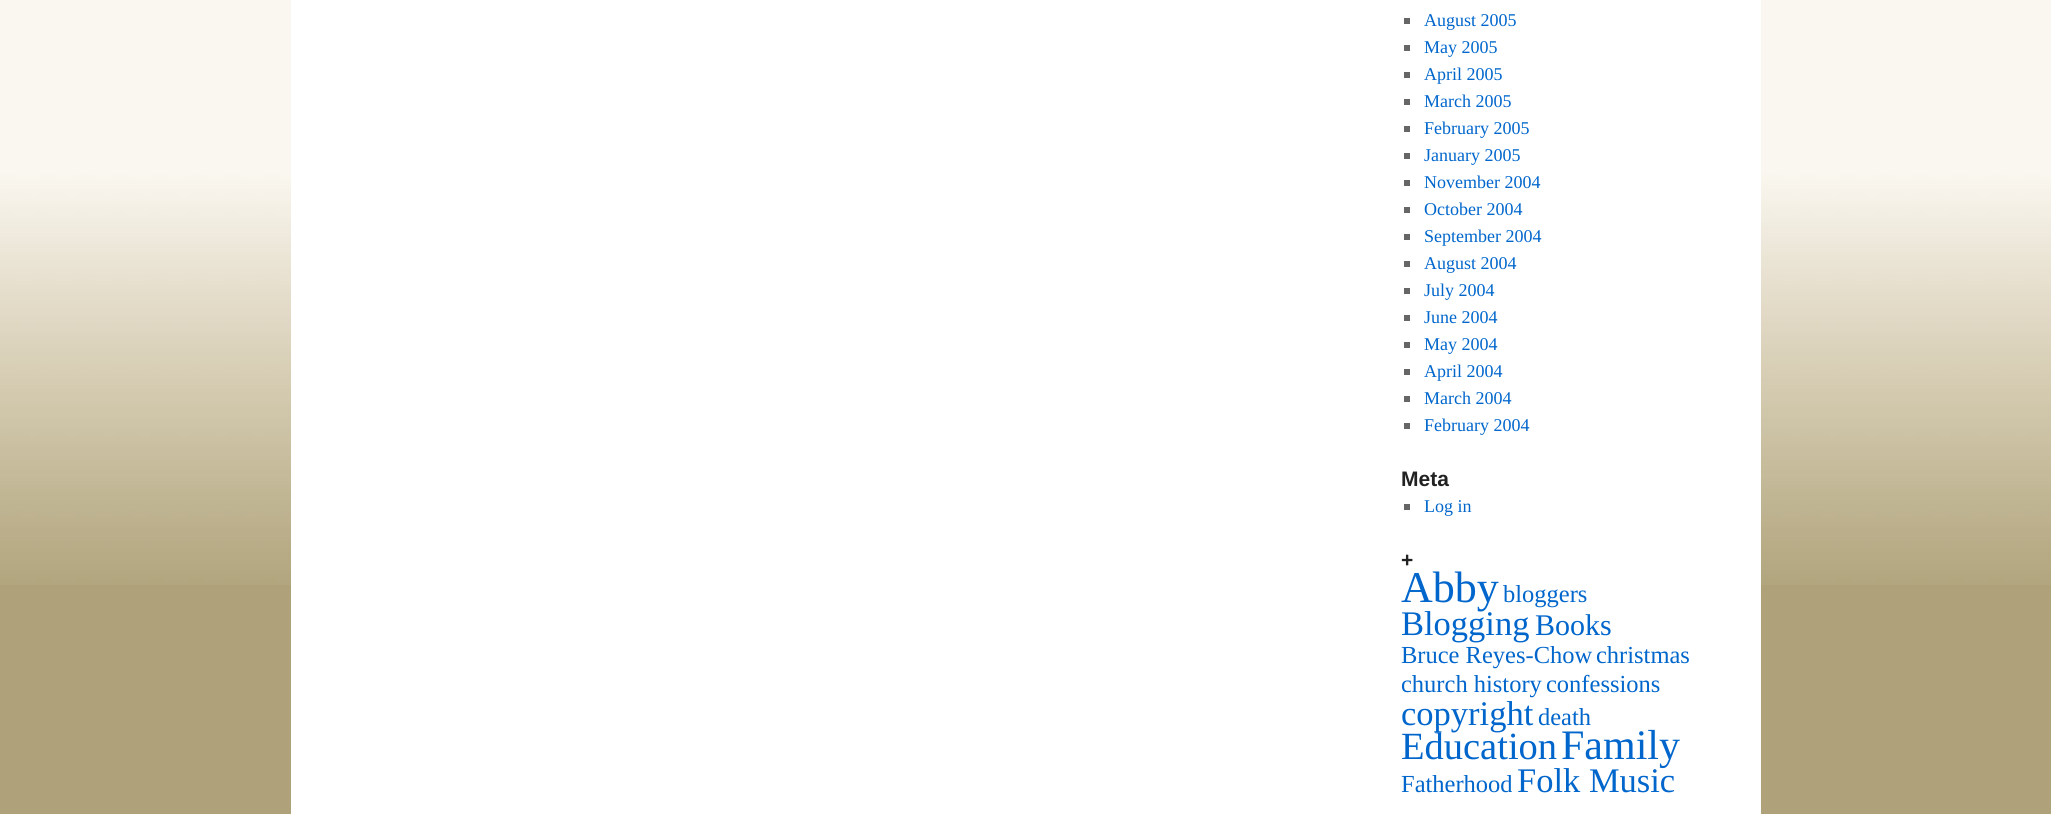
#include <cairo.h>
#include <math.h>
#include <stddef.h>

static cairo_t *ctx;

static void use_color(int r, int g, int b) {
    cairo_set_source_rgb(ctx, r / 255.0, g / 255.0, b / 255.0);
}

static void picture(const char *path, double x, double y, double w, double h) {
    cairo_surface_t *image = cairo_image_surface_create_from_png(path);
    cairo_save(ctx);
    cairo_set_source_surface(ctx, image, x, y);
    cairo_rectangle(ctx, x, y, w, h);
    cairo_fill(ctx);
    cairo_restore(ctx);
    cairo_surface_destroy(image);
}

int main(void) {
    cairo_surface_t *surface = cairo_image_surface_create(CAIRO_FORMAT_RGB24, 2051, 814);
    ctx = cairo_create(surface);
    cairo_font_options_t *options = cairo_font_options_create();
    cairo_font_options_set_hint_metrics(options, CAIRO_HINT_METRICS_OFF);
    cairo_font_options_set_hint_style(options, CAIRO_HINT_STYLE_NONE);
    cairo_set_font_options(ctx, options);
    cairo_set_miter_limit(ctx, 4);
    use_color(175, 161, 122);
    cairo_paint(ctx);
    picture("img1.png", 0, 0, 2051, 585);
    use_color(255, 255, 255);
    cairo_rectangle(ctx, 291, 0, 1470, 814);
    cairo_fill(ctx);
    use_color(102, 102, 102);
    cairo_rectangle(ctx, 1404, 18, 6, 6);
    cairo_fill(ctx);
    cairo_select_font_face(ctx, "Liberation Serif", CAIRO_FONT_SLANT_NORMAL, CAIRO_FONT_WEIGHT_NORMAL);
    cairo_set_font_size(ctx, 18);
    use_color(0, 102, 204);
    cairo_move_to(ctx, 1424, 26);
    cairo_show_text(ctx, "August 2005");
    use_color(102, 102, 102);
    cairo_rectangle(ctx, 1404, 45, 6, 6);
    cairo_fill(ctx);
    use_color(0, 102, 204);
    cairo_move_to(ctx, 1424, 53);
    cairo_show_text(ctx, "May 2005");
    use_color(102, 102, 102);
    cairo_rectangle(ctx, 1404, 72, 6, 6);
    cairo_fill(ctx);
    use_color(0, 102, 204);
    cairo_move_to(ctx, 1424, 80);
    cairo_show_text(ctx, "April 2005");
    use_color(102, 102, 102);
    cairo_rectangle(ctx, 1404, 99, 6, 6);
    cairo_fill(ctx);
    use_color(0, 102, 204);
    cairo_move_to(ctx, 1424, 107);
    cairo_show_text(ctx, "March 2005");
    use_color(102, 102, 102);
    cairo_rectangle(ctx, 1404, 126, 6, 6);
    cairo_fill(ctx);
    use_color(0, 102, 204);
    cairo_move_to(ctx, 1424, 134);
    cairo_show_text(ctx, "February 2005");
    use_color(102, 102, 102);
    cairo_rectangle(ctx, 1404, 153, 6, 6);
    cairo_fill(ctx);
    use_color(0, 102, 204);
    cairo_move_to(ctx, 1424, 161);
    cairo_show_text(ctx, "January 2005");
    use_color(102, 102, 102);
    cairo_rectangle(ctx, 1404, 180, 6, 6);
    cairo_fill(ctx);
    use_color(0, 102, 204);
    cairo_move_to(ctx, 1424, 188);
    cairo_show_text(ctx, "November 2004");
    use_color(102, 102, 102);
    cairo_rectangle(ctx, 1404, 207, 6, 6);
    cairo_fill(ctx);
    use_color(0, 102, 204);
    cairo_move_to(ctx, 1424, 215);
    cairo_show_text(ctx, "October 2004");
    use_color(102, 102, 102);
    cairo_rectangle(ctx, 1404, 234, 6, 6);
    cairo_fill(ctx);
    use_color(0, 102, 204);
    cairo_move_to(ctx, 1424, 242);
    cairo_show_text(ctx, "September 2004");
    use_color(102, 102, 102);
    cairo_rectangle(ctx, 1404, 261, 6, 6);
    cairo_fill(ctx);
    use_color(0, 102, 204);
    cairo_move_to(ctx, 1424, 269);
    cairo_show_text(ctx, "August 2004");
    use_color(102, 102, 102);
    cairo_rectangle(ctx, 1404, 288, 6, 6);
    cairo_fill(ctx);
    use_color(0, 102, 204);
    cairo_move_to(ctx, 1424, 296);
    cairo_show_text(ctx, "July 2004");
    use_color(102, 102, 102);
    cairo_rectangle(ctx, 1404, 315, 6, 6);
    cairo_fill(ctx);
    use_color(0, 102, 204);
    cairo_move_to(ctx, 1424, 323);
    cairo_show_text(ctx, "June 2004");
    use_color(102, 102, 102);
    cairo_rectangle(ctx, 1404, 342, 6, 6);
    cairo_fill(ctx);
    use_color(0, 102, 204);
    cairo_move_to(ctx, 1424, 350);
    cairo_show_text(ctx, "May 2004");
    use_color(102, 102, 102);
    cairo_rectangle(ctx, 1404, 369, 6, 6);
    cairo_fill(ctx);
    use_color(0, 102, 204);
    cairo_move_to(ctx, 1424, 377);
    cairo_show_text(ctx, "April 2004");
    use_color(102, 102, 102);
    cairo_rectangle(ctx, 1404, 396, 6, 6);
    cairo_fill(ctx);
    use_color(0, 102, 204);
    cairo_move_to(ctx, 1424, 404);
    cairo_show_text(ctx, "March 2004");
    use_color(102, 102, 102);
    cairo_rectangle(ctx, 1404, 423, 6, 6);
    cairo_fill(ctx);
    use_color(0, 102, 204);
    cairo_move_to(ctx, 1424, 431);
    cairo_show_text(ctx, "February 2004");
    cairo_select_font_face(ctx, "Liberation Sans", CAIRO_FONT_SLANT_NORMAL, CAIRO_FONT_WEIGHT_BOLD);
    cairo_set_font_size(ctx, 21);
    use_color(34, 34, 34);
    cairo_move_to(ctx, 1401, 486);
    cairo_show_text(ctx, "Meta");
    use_color(102, 102, 102);
    cairo_rectangle(ctx, 1404, 504, 6, 6);
    cairo_fill(ctx);
    cairo_select_font_face(ctx, "Liberation Serif", CAIRO_FONT_SLANT_NORMAL, CAIRO_FONT_WEIGHT_NORMAL);
    cairo_set_font_size(ctx, 18);
    use_color(0, 102, 204);
    cairo_move_to(ctx, 1424, 512);
    cairo_show_text(ctx, "Log in");
    cairo_select_font_face(ctx, "Liberation Sans", CAIRO_FONT_SLANT_NORMAL, CAIRO_FONT_WEIGHT_BOLD);
    cairo_set_font_size(ctx, 21);
    use_color(34, 34, 34);
    cairo_move_to(ctx, 1401, 567);
    cairo_show_text(ctx, "+");
    cairo_select_font_face(ctx, "Liberation Serif", CAIRO_FONT_SLANT_NORMAL, CAIRO_FONT_WEIGHT_NORMAL);
    cairo_set_font_size(ctx, 44);
    use_color(0, 102, 204);
    cairo_move_to(ctx, 1401, 602);
    cairo_show_text(ctx, "Abby");
    cairo_set_font_size(ctx, 24.5);
    cairo_move_to(ctx, 1503, 602);
    cairo_show_text(ctx, "bloggers");
    cairo_set_font_size(ctx, 34.5);
    cairo_move_to(ctx, 1401, 635);
    cairo_show_text(ctx, "Blogging");
    cairo_set_font_size(ctx, 30);
    cairo_move_to(ctx, 1535, 635);
    cairo_show_text(ctx, "Books");
    cairo_set_font_size(ctx, 24.5);
    cairo_move_to(ctx, 1401, 663);
    cairo_show_text(ctx, "Bruce Reyes-Chow");
    cairo_move_to(ctx, 1596, 663);
    cairo_show_text(ctx, "christmas");
    cairo_move_to(ctx, 1401, 692);
    cairo_show_text(ctx, "church history");
    cairo_move_to(ctx, 1546, 692);
    cairo_show_text(ctx, "confessions");
    cairo_set_font_size(ctx, 34.5);
    cairo_move_to(ctx, 1401, 725);
    cairo_show_text(ctx, "copyright");
    cairo_set_font_size(ctx, 24.5);
    cairo_move_to(ctx, 1538, 725);
    cairo_show_text(ctx, "death");
    cairo_set_font_size(ctx, 38.5);
    cairo_move_to(ctx, 1401, 759);
    cairo_show_text(ctx, "Education");
    cairo_set_font_size(ctx, 42);
    cairo_move_to(ctx, 1561, 759);
    cairo_show_text(ctx, "Family");
    cairo_set_font_size(ctx, 24.5);
    cairo_move_to(ctx, 1401, 792);
    cairo_show_text(ctx, "Fatherhood");
    cairo_set_font_size(ctx, 34.5);
    cairo_move_to(ctx, 1517, 792);
    cairo_show_text(ctx, "Folk Music");
    cairo_surface_write_to_png(surface, "result.png");
    cairo_font_options_destroy(options);
    cairo_destroy(ctx);
    cairo_surface_destroy(surface);
    return 0;
}
